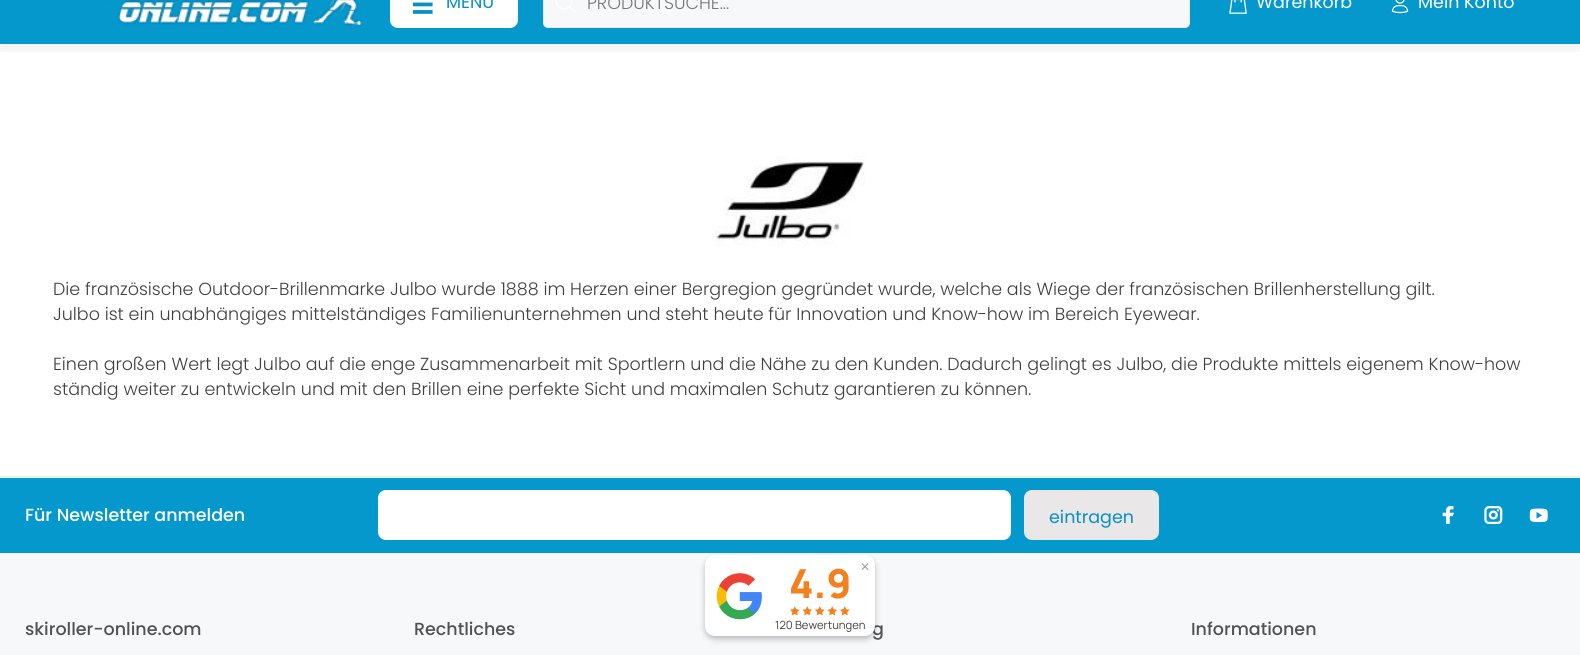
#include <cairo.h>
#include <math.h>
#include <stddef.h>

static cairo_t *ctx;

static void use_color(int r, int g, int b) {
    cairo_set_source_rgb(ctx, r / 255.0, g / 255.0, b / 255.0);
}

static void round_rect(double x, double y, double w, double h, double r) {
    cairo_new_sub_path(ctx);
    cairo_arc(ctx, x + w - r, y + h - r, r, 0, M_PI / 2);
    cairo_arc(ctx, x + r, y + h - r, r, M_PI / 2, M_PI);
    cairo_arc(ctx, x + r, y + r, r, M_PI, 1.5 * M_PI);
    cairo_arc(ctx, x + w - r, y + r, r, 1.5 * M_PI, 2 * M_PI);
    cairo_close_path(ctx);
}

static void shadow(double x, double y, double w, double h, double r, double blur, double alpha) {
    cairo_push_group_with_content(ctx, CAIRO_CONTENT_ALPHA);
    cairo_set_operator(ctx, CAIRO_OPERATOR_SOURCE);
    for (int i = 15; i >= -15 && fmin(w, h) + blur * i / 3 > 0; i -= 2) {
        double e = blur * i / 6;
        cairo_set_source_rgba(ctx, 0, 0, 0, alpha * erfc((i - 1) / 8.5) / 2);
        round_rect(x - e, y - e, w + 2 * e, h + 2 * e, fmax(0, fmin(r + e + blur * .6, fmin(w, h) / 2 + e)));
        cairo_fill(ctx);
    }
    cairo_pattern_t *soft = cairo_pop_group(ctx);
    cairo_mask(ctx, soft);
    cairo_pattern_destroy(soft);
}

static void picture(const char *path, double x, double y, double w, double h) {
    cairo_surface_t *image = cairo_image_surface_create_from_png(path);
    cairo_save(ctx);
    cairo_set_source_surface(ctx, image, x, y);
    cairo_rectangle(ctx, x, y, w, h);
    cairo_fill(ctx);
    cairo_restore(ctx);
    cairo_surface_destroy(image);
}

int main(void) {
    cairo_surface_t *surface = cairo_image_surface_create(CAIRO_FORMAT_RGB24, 1580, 655);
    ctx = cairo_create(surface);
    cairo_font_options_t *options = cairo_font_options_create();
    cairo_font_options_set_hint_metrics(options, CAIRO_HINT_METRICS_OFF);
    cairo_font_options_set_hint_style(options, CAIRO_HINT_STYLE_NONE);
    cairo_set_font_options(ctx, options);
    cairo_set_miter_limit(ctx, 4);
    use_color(255, 255, 255);
    cairo_paint(ctx);
    use_color(5, 152, 205);
    cairo_rectangle(ctx, 0, 0, 1580, 44);
    cairo_fill(ctx);
    cairo_save(ctx);
    cairo_rectangle(ctx, 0, 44, 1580, 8);
    cairo_clip(ctx);
    use_color(0, 0, 0);
    shadow(0, -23, 1580, 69, 0, 7.5, 0.1);
    cairo_restore(ctx);
    picture("img1.png", 66, 0, 296, 27);
    use_color(255, 255, 255);
    round_rect(390, -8, 128, 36, 8);
    cairo_fill(ctx);
    picture("img2.png", 413, 2, 20, 12);
    cairo_select_font_face(ctx, "Poppins", CAIRO_FONT_SLANT_NORMAL, CAIRO_FONT_WEIGHT_NORMAL);
    cairo_set_font_size(ctx, 17.5);
    use_color(7, 145, 194);
    cairo_move_to(ctx, 446, 8);
    cairo_show_text(ctx, "MENU");
    use_color(247, 248, 250);
    round_rect(543.5, -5.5, 646, 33, 4.5);
    cairo_fill_preserve(ctx);
    use_color(233, 231, 231);
    cairo_set_line_width(ctx, 1);
    cairo_stroke(ctx);
    picture("img3.png", 555, 0, 20, 13);
    cairo_select_font_face(ctx, "Poppins Light", CAIRO_FONT_SLANT_NORMAL, CAIRO_FONT_WEIGHT_NORMAL);
    use_color(119, 119, 119);
    cairo_move_to(ctx, 587, 9);
    cairo_show_text(ctx, "PRODUKTSUCHE...");
    picture("img4.png", 1229, 0, 18, 14);
    cairo_select_font_face(ctx, "Poppins", CAIRO_FONT_SLANT_NORMAL, CAIRO_FONT_WEIGHT_NORMAL);
    use_color(255, 255, 255);
    cairo_move_to(ctx, 1256, 8);
    cairo_show_text(ctx, "Warenkorb");
    picture("img5.png", 1391, 0, 18, 14);
    cairo_move_to(ctx, 1418, 8);
    cairo_show_text(ctx, "Mein Konto");
    picture("img6.png", 715, 156, 150, 90);
    cairo_select_font_face(ctx, "Poppins Light", CAIRO_FONT_SLANT_NORMAL, CAIRO_FONT_WEIGHT_NORMAL);
    use_color(65, 63, 63);
    cairo_move_to(ctx, 53, 295);
    cairo_show_text(ctx, "Die französische Outdoor-Brillenmarke Julbo wurde 1888 im Herzen einer Bergregion gegründet wurde, welche als Wiege der französischen Brillenherstellung gilt.");
    cairo_move_to(ctx, 53, 320);
    cairo_show_text(ctx, "Julbo ist ein unabhängiges mittelständiges Familienunternehmen und steht heute für Innovation und Know-how im Bereich Eyewear.");
    cairo_move_to(ctx, 53, 370);
    cairo_show_text(ctx, "Einen großen Wert legt Julbo auf die enge Zusammenarbeit mit Sportlern und die Nähe zu den Kunden. Dadurch gelingt es Julbo, die Produkte mittels eigenem Know-how");
    cairo_move_to(ctx, 53, 395);
    cairo_show_text(ctx, "ständig weiter zu entwickeln und mit den Brillen eine perfekte Sicht und maximalen Schutz garantieren zu können.");
    use_color(247, 248, 250);
    cairo_rectangle(ctx, 0, 477, 1580, 178);
    cairo_fill(ctx);
    use_color(233, 231, 231);
    cairo_rectangle(ctx, 0, 476, 1580, 1);
    cairo_fill(ctx);
    use_color(5, 152, 205);
    cairo_rectangle(ctx, 0, 478, 1580, 75);
    cairo_fill(ctx);
    cairo_select_font_face(ctx, "Poppins Medium", CAIRO_FONT_SLANT_NORMAL, CAIRO_FONT_WEIGHT_NORMAL);
    use_color(255, 255, 255);
    cairo_move_to(ctx, 25, 521);
    cairo_show_text(ctx, "Für Newsletter anmelden");
    round_rect(378, 490, 633, 50, 8);
    cairo_fill(ctx);
    use_color(233, 231, 231);
    round_rect(1024, 490, 135, 50, 8);
    cairo_fill(ctx);
    cairo_select_font_face(ctx, "Poppins", CAIRO_FONT_SLANT_NORMAL, CAIRO_FONT_WEIGHT_NORMAL);
    use_color(7, 145, 194);
    cairo_move_to(ctx, 1049, 523);
    cairo_show_text(ctx, "eintragen");
    picture("img7.png", 1442, 506, 12, 18);
    picture("img8.png", 1484, 506, 19, 18);
    picture("img9.png", 1529, 508, 19, 15);
    cairo_select_font_face(ctx, "Poppins Medium", CAIRO_FONT_SLANT_NORMAL, CAIRO_FONT_WEIGHT_NORMAL);
    use_color(83, 82, 82);
    cairo_move_to(ctx, 25, 635);
    cairo_show_text(ctx, "skiroller-online.com");
    cairo_move_to(ctx, 414, 635);
    cairo_show_text(ctx, "Rechtliches");
    cairo_move_to(ctx, 872, 635);
    cairo_show_text(ctx, "g");
    cairo_move_to(ctx, 1191, 635);
    cairo_show_text(ctx, "Informationen");
    use_color(0, 0, 0);
    shadow(705, 558, 170, 81, 10, 3, 0.26);
    use_color(255, 255, 255);
    round_rect(705, 555, 170, 81, 10);
    cairo_fill(ctx);
    cairo_select_font_face(ctx, "DejaVu Sans", CAIRO_FONT_SLANT_NORMAL, CAIRO_FONT_WEIGHT_NORMAL);
    cairo_set_font_size(ctx, 12);
    use_color(160, 160, 160);
    cairo_move_to(ctx, 860, 571);
    cairo_show_text(ctx, "✕");
    picture("img10.png", 716, 573, 46, 47);
    cairo_select_font_face(ctx, "Manrope ExtraBold", CAIRO_FONT_SLANT_NORMAL, CAIRO_FONT_WEIGHT_NORMAL);
    cairo_set_font_size(ctx, 40);
    use_color(244, 129, 32);
    cairo_move_to(ctx, 789, 598);
    cairo_show_text(ctx, "4.9");
    picture("img11.png", 790, 606, 10, 10);
    picture("img12.png", 803, 606, 9, 10);
    picture("img11.png", 815, 606, 10, 10);
    picture("img12.png", 828, 606, 9, 10);
    picture("img11.png", 840, 606, 10, 10);
    cairo_select_font_face(ctx, "Manrope", CAIRO_FONT_SLANT_NORMAL, CAIRO_FONT_WEIGHT_NORMAL);
    cairo_set_font_size(ctx, 11.25);
    use_color(65, 63, 63);
    cairo_move_to(ctx, 775, 629);
    cairo_show_text(ctx, "120 Bewertungen");
    cairo_surface_write_to_png(surface, "result.png");
    cairo_font_options_destroy(options);
    cairo_destroy(ctx);
    cairo_surface_destroy(surface);
    return 0;
}
